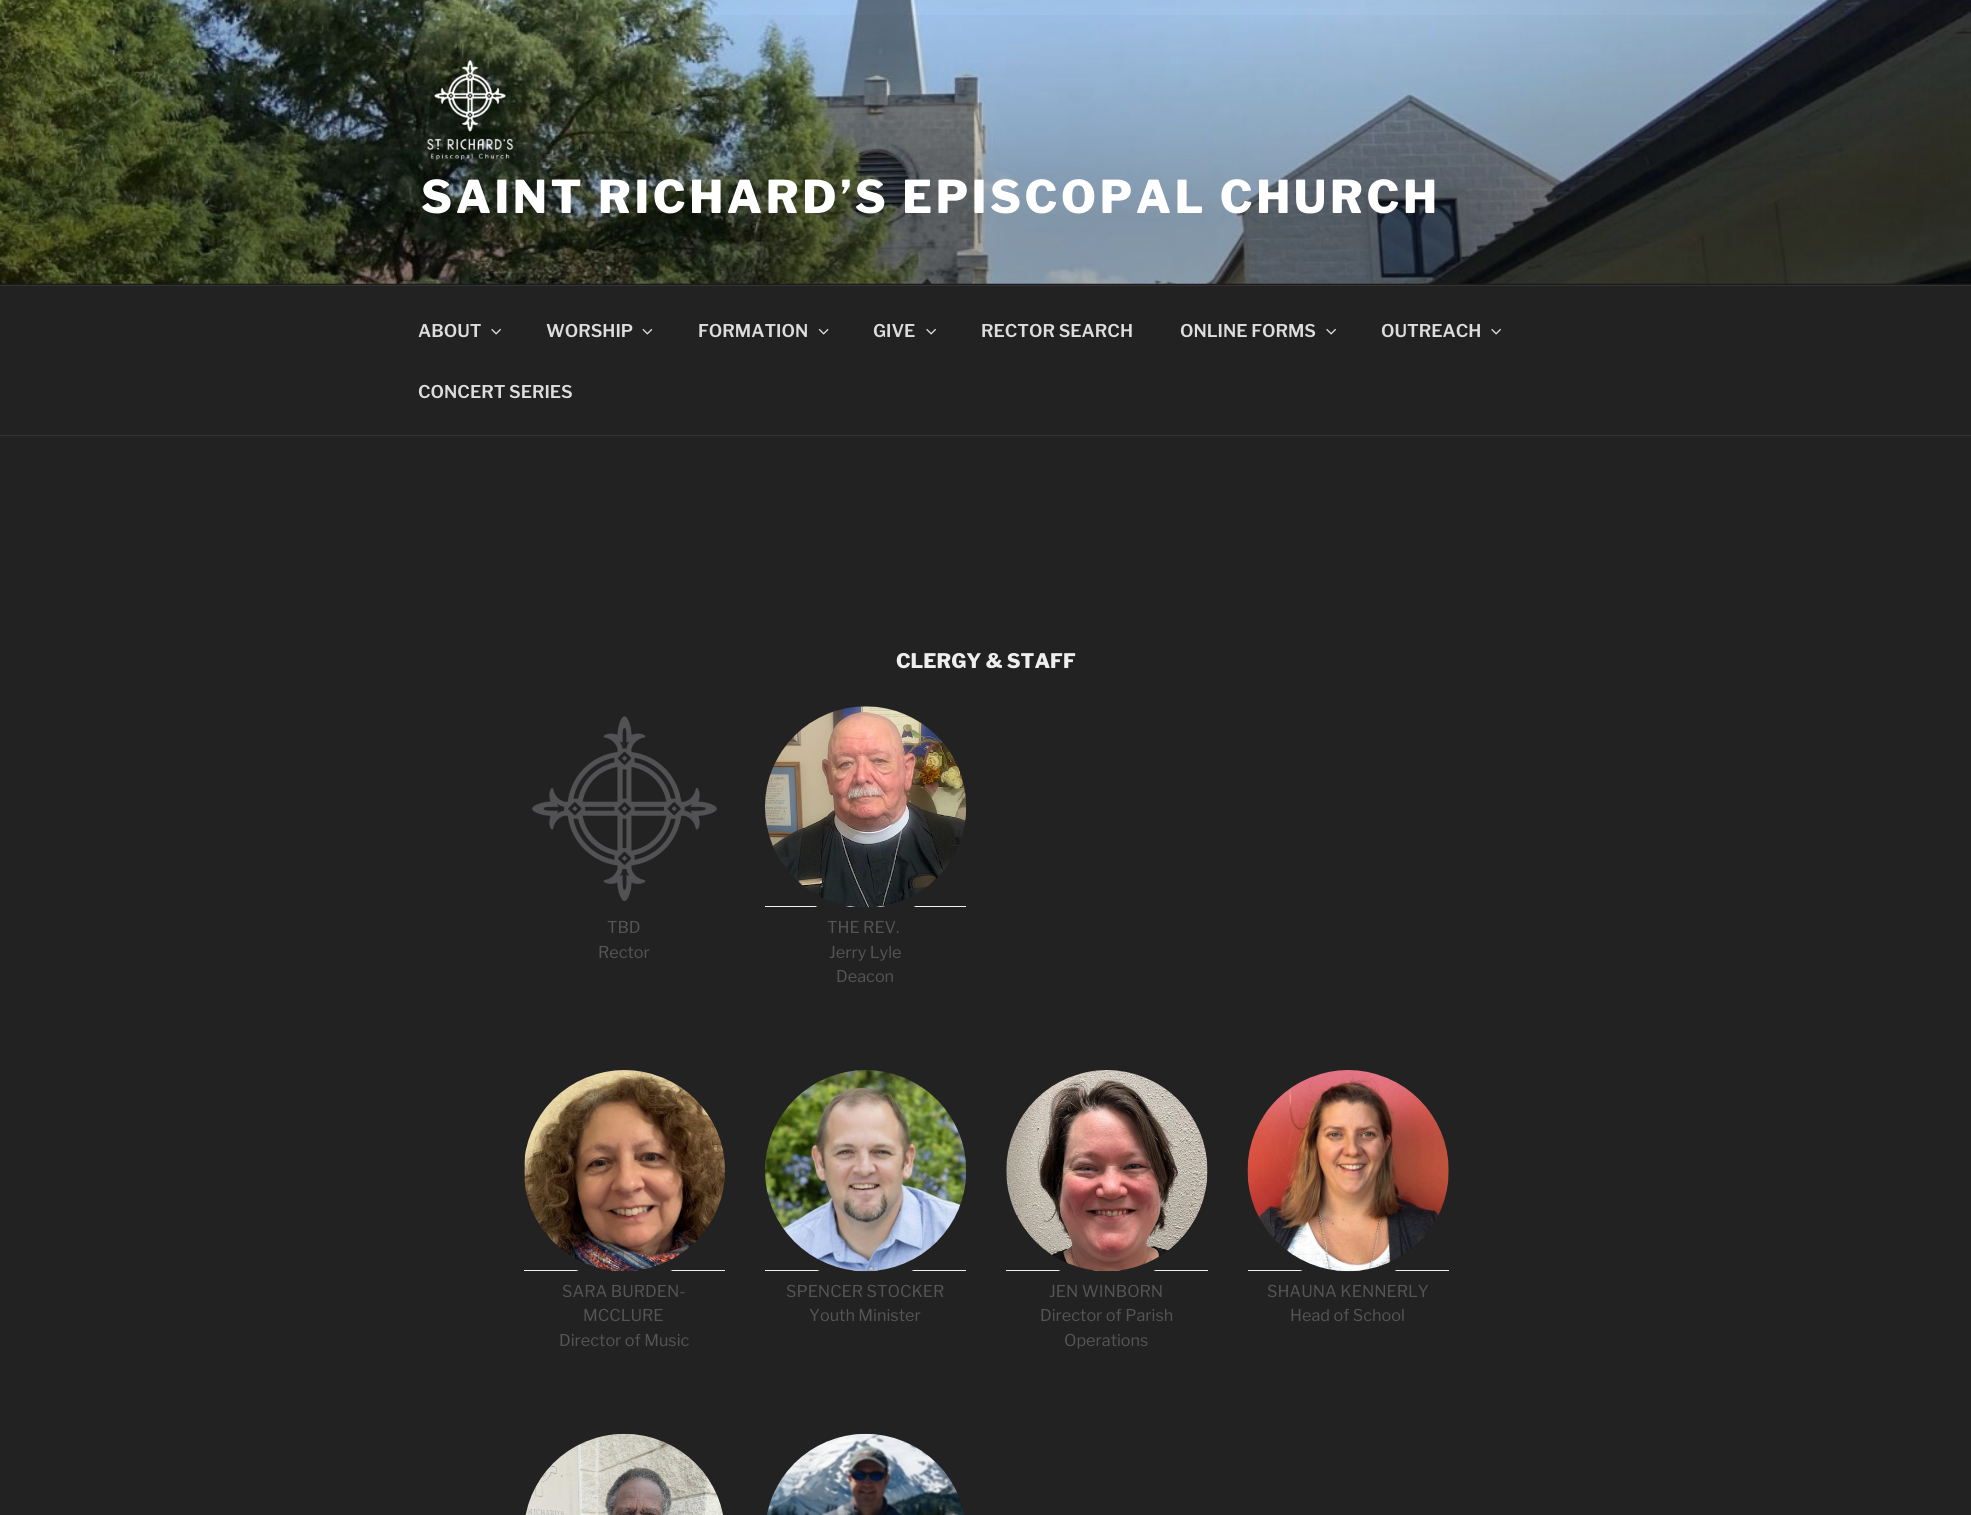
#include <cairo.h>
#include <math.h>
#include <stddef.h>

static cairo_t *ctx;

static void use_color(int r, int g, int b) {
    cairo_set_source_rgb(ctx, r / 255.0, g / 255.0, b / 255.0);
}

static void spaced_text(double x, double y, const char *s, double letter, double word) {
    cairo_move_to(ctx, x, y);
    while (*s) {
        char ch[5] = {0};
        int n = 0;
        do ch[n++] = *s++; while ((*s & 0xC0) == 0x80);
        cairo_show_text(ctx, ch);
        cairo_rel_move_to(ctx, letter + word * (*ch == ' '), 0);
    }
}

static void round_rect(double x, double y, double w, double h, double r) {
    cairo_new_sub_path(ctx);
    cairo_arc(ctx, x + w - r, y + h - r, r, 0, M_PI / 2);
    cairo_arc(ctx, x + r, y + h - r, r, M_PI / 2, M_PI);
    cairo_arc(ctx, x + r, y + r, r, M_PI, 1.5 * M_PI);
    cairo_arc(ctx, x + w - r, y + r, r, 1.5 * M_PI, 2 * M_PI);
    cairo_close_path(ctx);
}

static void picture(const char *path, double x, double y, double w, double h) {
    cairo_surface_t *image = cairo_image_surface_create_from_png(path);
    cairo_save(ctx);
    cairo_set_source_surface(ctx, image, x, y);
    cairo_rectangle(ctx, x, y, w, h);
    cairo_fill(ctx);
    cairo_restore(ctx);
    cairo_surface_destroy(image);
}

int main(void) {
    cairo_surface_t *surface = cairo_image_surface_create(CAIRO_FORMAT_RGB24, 1971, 1515);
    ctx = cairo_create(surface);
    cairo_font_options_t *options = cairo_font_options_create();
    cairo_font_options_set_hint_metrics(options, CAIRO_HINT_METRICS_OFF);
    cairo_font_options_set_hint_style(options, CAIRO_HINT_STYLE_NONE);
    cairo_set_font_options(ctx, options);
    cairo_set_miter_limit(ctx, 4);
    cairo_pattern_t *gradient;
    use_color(34, 34, 34);
    cairo_paint(ctx);
    use_color(38, 38, 38);
    cairo_rectangle(ctx, 0, 283, 1971, 2);
    cairo_fill(ctx);
    picture("img1.png", 0, 0, 1971, 284);
    gradient = cairo_pattern_create_linear(986, 0, 986, 285);
    cairo_pattern_add_color_stop_rgba(gradient, 0, 0, 0, 0, 0);
    cairo_pattern_add_color_stop_rgba(gradient, 0.75, 0, 0, 0, 0.3);
    cairo_pattern_add_color_stop_rgba(gradient, 1, 0, 0, 0, 0.3);
    cairo_set_source(ctx, gradient);
    cairo_pattern_destroy(gradient);
    cairo_rectangle(ctx, 0, 15, 1971, 270);
    cairo_fill(ctx);
    picture("img2.png", 427, 60, 87, 100);
    cairo_select_font_face(ctx, "Libre Franklin Thin", CAIRO_FONT_SLANT_NORMAL, CAIRO_FONT_WEIGHT_NORMAL);
    cairo_set_font_size(ctx, 45);
    use_color(255, 255, 255);
    spaced_text(421, 213, "SAINT RICHARD’S EPISCOPAL CHURCH", 3.6, 0);
    use_color(51, 51, 51);
    cairo_rectangle(ctx, 0, 285, 1971, 1);
    cairo_fill(ctx);
    cairo_rectangle(ctx, 0, 435, 1971, 1);
    cairo_fill(ctx);
    cairo_select_font_face(ctx, "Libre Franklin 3 Thin", CAIRO_FONT_SLANT_NORMAL, CAIRO_FONT_WEIGHT_NORMAL);
    cairo_set_font_size(ctx, 17.5);
    use_color(221, 221, 221);
    cairo_move_to(ctx, 418, 337);
    cairo_show_text(ctx, "ABOUT");
    picture("img3.png", 491, 328, 10, 7);
    cairo_move_to(ctx, 546, 337);
    cairo_show_text(ctx, "WORSHIP");
    picture("img4.png", 642, 328, 11, 7);
    cairo_move_to(ctx, 698, 337);
    cairo_show_text(ctx, "FORMATION");
    picture("img5.png", 818, 328, 11, 7);
    cairo_move_to(ctx, 873, 337);
    cairo_show_text(ctx, "GIVE");
    picture("img3.png", 926, 328, 10, 7);
    cairo_move_to(ctx, 981, 337);
    cairo_show_text(ctx, "RECTOR SEARCH");
    cairo_move_to(ctx, 1180, 337);
    cairo_show_text(ctx, "ONLINE FORMS");
    picture("img3.png", 1326, 328, 10, 7);
    cairo_move_to(ctx, 1381, 337);
    cairo_show_text(ctx, "OUTREACH");
    picture("img3.png", 1491, 328, 10, 7);
    cairo_move_to(ctx, 418, 398);
    cairo_show_text(ctx, "CONCERT SERIES");
    cairo_select_font_face(ctx, "Libre Franklin Thin", CAIRO_FONT_SLANT_NORMAL, CAIRO_FONT_WEIGHT_NORMAL);
    cairo_set_font_size(ctx, 20);
    use_color(238, 238, 238);
    cairo_move_to(ctx, 896, 668);
    cairo_show_text(ctx, "CLERGY & STAFF");
    picture("img6.png", 532, 716, 185, 185);
    cairo_select_font_face(ctx, "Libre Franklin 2 Thin", CAIRO_FONT_SLANT_NORMAL, CAIRO_FONT_WEIGHT_NORMAL);
    cairo_set_font_size(ctx, 16.25);
    use_color(85, 85, 85);
    cairo_move_to(ctx, 607, 933);
    cairo_show_text(ctx, "TBD");
    cairo_move_to(ctx, 598, 958);
    cairo_show_text(ctx, "Rector");
    use_color(240, 240, 240);
    cairo_rectangle(ctx, 765, 906, 201, 1);
    cairo_fill(ctx);
    round_rect(760, 701, 211, 212, 105.5);
    use_color(34, 34, 34);
    cairo_set_line_width(ctx, 10);
    cairo_stroke(ctx);
    picture("img7.png", 765, 706, 202, 202);
    use_color(85, 85, 85);
    cairo_move_to(ctx, 827, 933);
    cairo_show_text(ctx, "THE REV.");
    cairo_move_to(ctx, 829, 958);
    cairo_show_text(ctx, "Jerry Lyle");
    cairo_move_to(ctx, 836, 982);
    cairo_show_text(ctx, "Deacon");
    use_color(240, 240, 240);
    cairo_rectangle(ctx, 524, 1270, 201, 1);
    cairo_fill(ctx);
    cairo_arc(ctx, 624.5, 1170.5, 105.5, 0, 2 * M_PI);
    use_color(34, 34, 34);
    cairo_stroke(ctx);
    picture("img8.png", 524, 1070, 201, 202);
    use_color(85, 85, 85);
    cairo_move_to(ctx, 562, 1297);
    cairo_show_text(ctx, "SARA BURDEN-");
    cairo_move_to(ctx, 583, 1321);
    cairo_show_text(ctx, "MCCLURE");
    cairo_move_to(ctx, 559, 1346);
    cairo_show_text(ctx, "Director of Music");
    use_color(240, 240, 240);
    cairo_rectangle(ctx, 765, 1270, 201, 1);
    cairo_fill(ctx);
    cairo_arc(ctx, 865.5, 1170.5, 105.5, 0, 2 * M_PI);
    use_color(34, 34, 34);
    cairo_stroke(ctx);
    picture("img9.png", 765, 1070, 202, 202);
    use_color(85, 85, 85);
    cairo_move_to(ctx, 786, 1297);
    cairo_show_text(ctx, "SPENCER STOCKER");
    cairo_move_to(ctx, 809, 1321);
    cairo_show_text(ctx, "Youth Minister");
    use_color(240, 240, 240);
    cairo_rectangle(ctx, 1006, 1270, 202, 1);
    cairo_fill(ctx);
    round_rect(1001, 1065, 212, 211, 105.5);
    use_color(34, 34, 34);
    cairo_stroke(ctx);
    picture("img10.png", 1006, 1070, 202, 202);
    use_color(85, 85, 85);
    cairo_move_to(ctx, 1049, 1297);
    cairo_show_text(ctx, "JEN WINBORN");
    cairo_move_to(ctx, 1040, 1321);
    cairo_show_text(ctx, "Director of Parish");
    cairo_move_to(ctx, 1064, 1346);
    cairo_show_text(ctx, "Operations");
    use_color(240, 240, 240);
    cairo_rectangle(ctx, 1248, 1270, 201, 1);
    cairo_fill(ctx);
    cairo_arc(ctx, 1348.5, 1170.5, 105.5, 0, 2 * M_PI);
    use_color(34, 34, 34);
    cairo_stroke(ctx);
    picture("img11.png", 1247, 1070, 202, 202);
    use_color(85, 85, 85);
    cairo_move_to(ctx, 1267, 1297);
    cairo_show_text(ctx, "SHAUNA KENNERLY");
    cairo_move_to(ctx, 1290, 1321);
    cairo_show_text(ctx, "Head of School");
    picture("img12.png", 525, 1433, 199, 82);
    picture("img13.png", 767, 1433, 198, 82);
    cairo_surface_write_to_png(surface, "result.png");
    cairo_font_options_destroy(options);
    cairo_destroy(ctx);
    cairo_surface_destroy(surface);
    return 0;
}
